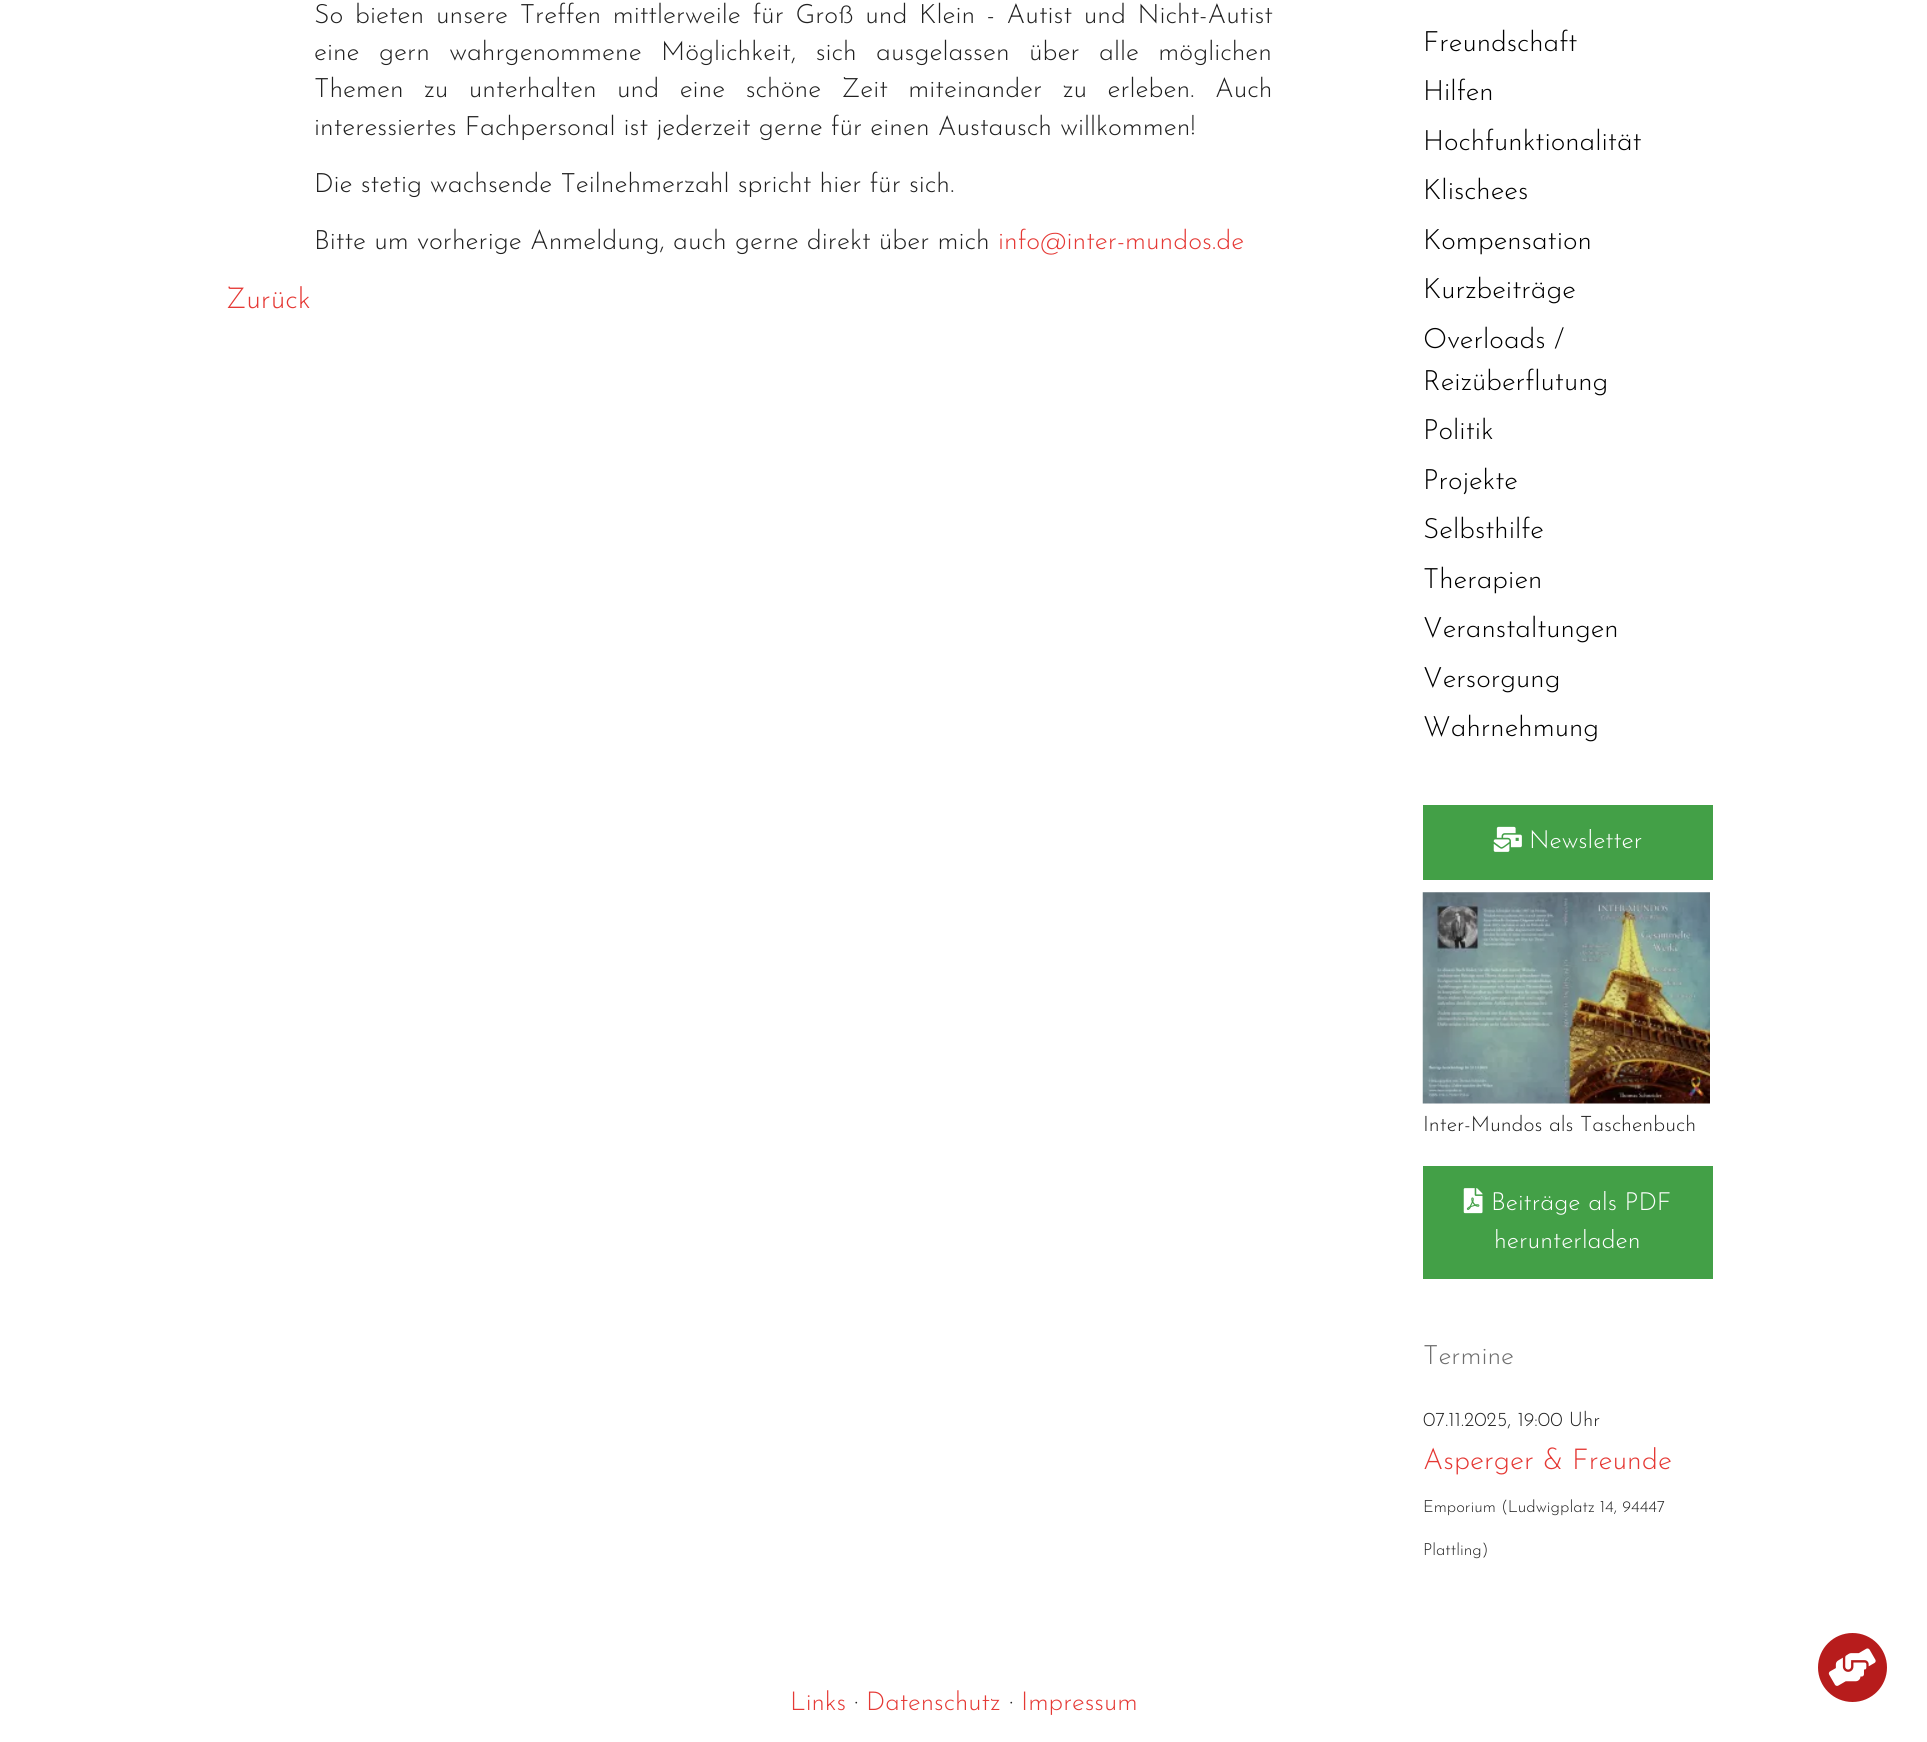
#include <cairo.h>
#include <math.h>
#include <stddef.h>

static cairo_t *ctx;

static void use_color(int r, int g, int b) {
    cairo_set_source_rgb(ctx, r / 255.0, g / 255.0, b / 255.0);
}

static void spaced_text(double x, double y, const char *s, double letter, double word) {
    cairo_move_to(ctx, x, y);
    while (*s) {
        char ch[5] = {0};
        int n = 0;
        do ch[n++] = *s++; while ((*s & 0xC0) == 0x80);
        cairo_show_text(ctx, ch);
        cairo_rel_move_to(ctx, letter + word * (*ch == ' '), 0);
    }
}

static void picture(const char *path, double x, double y, double w, double h) {
    cairo_surface_t *image = cairo_image_surface_create_from_png(path);
    cairo_save(ctx);
    cairo_set_source_surface(ctx, image, x, y);
    cairo_rectangle(ctx, x, y, w, h);
    cairo_fill(ctx);
    cairo_restore(ctx);
    cairo_surface_destroy(image);
}

int main(void) {
    cairo_surface_t *surface = cairo_image_surface_create(CAIRO_FORMAT_RGB24, 1927, 1742);
    ctx = cairo_create(surface);
    cairo_font_options_t *options = cairo_font_options_create();
    cairo_font_options_set_hint_metrics(options, CAIRO_HINT_METRICS_OFF);
    cairo_font_options_set_hint_style(options, CAIRO_HINT_STYLE_NONE);
    cairo_set_font_options(ctx, options);
    cairo_set_miter_limit(ctx, 4);
    use_color(255, 255, 255);
    cairo_paint(ctx);
    cairo_select_font_face(ctx, "Josefin Sans Thin", CAIRO_FONT_SLANT_NORMAL, CAIRO_FONT_WEIGHT_NORMAL);
    cairo_set_font_size(ctx, 26.65);
    use_color(33, 33, 33);
    spaced_text(314, 23, "So bieten unsere Treffen mittlerweile für Groß und Klein - Autist und Nicht-Autist", 0, 3.5);
    spaced_text(314, 60, "eine gern wahrgenommene Möglichkeit, sich ausgelassen über alle möglichen", 0, 11.25);
    spaced_text(314, 97, "Themen zu unterhalten und eine schöne Zeit miteinander zu erleben. Auch", 0, 12.25);
    cairo_move_to(ctx, 314, 135);
    cairo_show_text(ctx, "interessiertes Fachpersonal ist jederzeit gerne für einen Austausch willkommen!");
    cairo_move_to(ctx, 314, 192);
    cairo_show_text(ctx, "Die stetig wachsende Teilnehmerzahl spricht hier für sich.");
    cairo_move_to(ctx, 314, 249);
    cairo_show_text(ctx, "Bitte um vorherige Anmeldung, auch gerne direkt über mich");
    use_color(229, 57, 53);
    cairo_move_to(ctx, 998, 249);
    cairo_show_text(ctx, "info@inter-mundos.de");
    cairo_set_font_size(ctx, 28.75);
    cairo_move_to(ctx, 226, 308);
    cairo_show_text(ctx, "Zurück");
    cairo_set_font_size(ctx, 28);
    use_color(0, 0, 0);
    cairo_move_to(ctx, 1423, 51);
    cairo_show_text(ctx, "Freundschaft");
    cairo_move_to(ctx, 1423, 100);
    cairo_show_text(ctx, "Hilfen");
    cairo_move_to(ctx, 1423, 150);
    cairo_show_text(ctx, "Hochfunktionalität");
    cairo_move_to(ctx, 1423, 199);
    cairo_show_text(ctx, "Klischees");
    cairo_move_to(ctx, 1423, 249);
    cairo_show_text(ctx, "Kompensation");
    cairo_move_to(ctx, 1423, 298);
    cairo_show_text(ctx, "Kurzbeiträge");
    cairo_move_to(ctx, 1423, 348);
    cairo_show_text(ctx, "Overloads /");
    cairo_move_to(ctx, 1423, 390);
    cairo_show_text(ctx, "Reizüberflutung");
    cairo_move_to(ctx, 1423, 439);
    cairo_show_text(ctx, "Politik");
    cairo_move_to(ctx, 1423, 489);
    cairo_show_text(ctx, "Projekte");
    cairo_move_to(ctx, 1423, 538);
    cairo_show_text(ctx, "Selbsthilfe");
    cairo_move_to(ctx, 1423, 588);
    cairo_show_text(ctx, "Therapien");
    cairo_move_to(ctx, 1423, 637);
    cairo_show_text(ctx, "Veranstaltungen");
    cairo_move_to(ctx, 1423, 687);
    cairo_show_text(ctx, "Versorgung");
    cairo_move_to(ctx, 1423, 736);
    cairo_show_text(ctx, "Wahrnehmung");
    use_color(67, 160, 71);
    cairo_rectangle(ctx, 1423, 805, 290, 75);
    cairo_fill(ctx);
    picture("img1.png", 1493, 826, 29, 26);
    cairo_set_font_size(ctx, 25);
    use_color(255, 255, 255);
    cairo_move_to(ctx, 1529, 848);
    cairo_show_text(ctx, "Newsletter");
    picture("img2.png", 1422, 892, 288, 212);
    cairo_set_font_size(ctx, 21.25);
    use_color(33, 33, 33);
    cairo_move_to(ctx, 1423, 1131);
    cairo_show_text(ctx, "Inter-Mundos als Taschenbuch");
    use_color(67, 160, 71);
    cairo_rectangle(ctx, 1423, 1166, 290, 113);
    cairo_fill(ctx);
    picture("img3.png", 1463, 1188, 20, 26);
    cairo_set_font_size(ctx, 25);
    use_color(255, 255, 255);
    cairo_move_to(ctx, 1491, 1210);
    cairo_show_text(ctx, "Beiträge als PDF");
    cairo_move_to(ctx, 1494, 1248);
    cairo_show_text(ctx, "herunterladen");
    cairo_set_font_size(ctx, 26.65);
    use_color(110, 110, 110);
    cairo_move_to(ctx, 1423, 1364);
    cairo_show_text(ctx, "Termine");
    cairo_set_font_size(ctx, 20);
    use_color(33, 33, 33);
    cairo_move_to(ctx, 1423, 1426);
    cairo_show_text(ctx, "07.11.2025, 19:00 Uhr");
    cairo_set_font_size(ctx, 28.75);
    use_color(229, 57, 53);
    cairo_move_to(ctx, 1423, 1469);
    cairo_show_text(ctx, "Asperger & Freunde");
    cairo_set_font_size(ctx, 16.7);
    use_color(33, 33, 33);
    cairo_move_to(ctx, 1423, 1512);
    cairo_show_text(ctx, "Emporium (Ludwigplatz 14, 94447");
    cairo_move_to(ctx, 1423, 1555);
    cairo_show_text(ctx, "Plattling)");
    cairo_set_font_size(ctx, 26);
    use_color(229, 57, 53);
    cairo_move_to(ctx, 790, 1710);
    cairo_show_text(ctx, "Links");
    use_color(33, 33, 33);
    cairo_move_to(ctx, 854, 1710);
    cairo_show_text(ctx, "·");
    use_color(229, 57, 53);
    cairo_move_to(ctx, 866, 1710);
    cairo_show_text(ctx, "Datenschutz");
    use_color(33, 33, 33);
    cairo_move_to(ctx, 1009, 1710);
    cairo_show_text(ctx, "·");
    use_color(229, 57, 53);
    cairo_move_to(ctx, 1021, 1710);
    cairo_show_text(ctx, "Impressum");
    use_color(183, 28, 28);
    cairo_new_path(ctx);
    cairo_arc(ctx, 1852.5, 1667.5, 36, 0, 2 * M_PI);
    cairo_fill_preserve(ctx);
    use_color(255, 255, 255);
    cairo_set_line_width(ctx, 3);
    cairo_stroke(ctx);
    picture("img4.png", 1828, 1648, 48, 38);
    cairo_surface_write_to_png(surface, "result.png");
    cairo_font_options_destroy(options);
    cairo_destroy(ctx);
    cairo_surface_destroy(surface);
    return 0;
}
